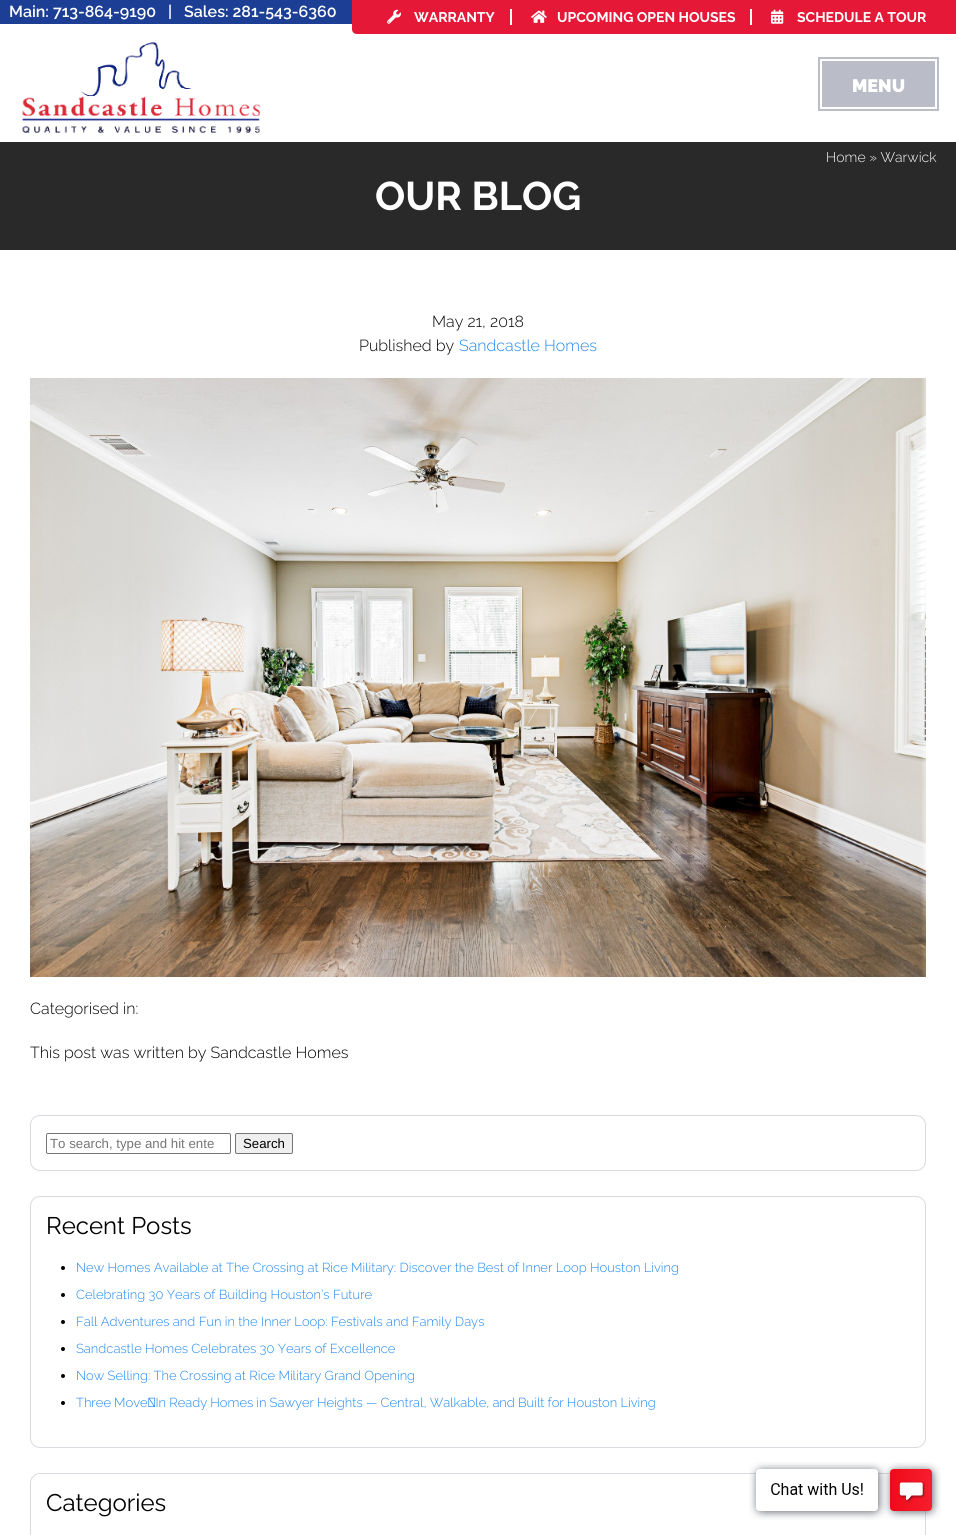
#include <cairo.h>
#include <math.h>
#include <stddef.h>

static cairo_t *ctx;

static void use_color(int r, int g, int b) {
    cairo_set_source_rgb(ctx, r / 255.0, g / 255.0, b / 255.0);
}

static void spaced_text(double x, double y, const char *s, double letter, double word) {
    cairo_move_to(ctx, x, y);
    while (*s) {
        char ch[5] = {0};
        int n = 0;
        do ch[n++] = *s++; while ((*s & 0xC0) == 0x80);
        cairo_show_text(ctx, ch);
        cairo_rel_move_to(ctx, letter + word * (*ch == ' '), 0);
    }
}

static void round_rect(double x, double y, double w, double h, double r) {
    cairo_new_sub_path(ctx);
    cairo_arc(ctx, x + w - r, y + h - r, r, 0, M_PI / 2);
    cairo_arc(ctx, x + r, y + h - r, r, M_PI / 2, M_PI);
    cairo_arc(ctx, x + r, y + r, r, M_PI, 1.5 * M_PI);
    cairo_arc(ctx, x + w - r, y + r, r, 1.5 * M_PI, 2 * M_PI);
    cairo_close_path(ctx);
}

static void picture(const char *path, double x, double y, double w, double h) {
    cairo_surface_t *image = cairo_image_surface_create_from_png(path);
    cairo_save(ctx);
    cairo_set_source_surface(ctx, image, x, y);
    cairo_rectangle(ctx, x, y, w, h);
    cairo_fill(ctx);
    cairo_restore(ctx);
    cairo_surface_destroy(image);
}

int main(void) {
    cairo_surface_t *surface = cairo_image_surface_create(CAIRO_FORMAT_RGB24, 956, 1535);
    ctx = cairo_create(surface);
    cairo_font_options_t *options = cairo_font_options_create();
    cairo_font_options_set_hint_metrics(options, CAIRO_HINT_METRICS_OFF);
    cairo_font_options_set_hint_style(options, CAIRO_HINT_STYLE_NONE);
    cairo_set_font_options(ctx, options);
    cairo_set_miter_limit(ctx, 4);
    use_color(255, 255, 255);
    cairo_paint(ctx);
    use_color(28, 63, 149);
    cairo_rectangle(ctx, 0, 0, 352, 24);
    cairo_fill(ctx);
    cairo_select_font_face(ctx, "Raleway SemiBold", CAIRO_FONT_SLANT_NORMAL, CAIRO_FONT_WEIGHT_NORMAL);
    cairo_set_font_size(ctx, 16);
    use_color(255, 255, 255);
    cairo_move_to(ctx, 9, 17);
    cairo_show_text(ctx, "Main: 713-864-9190");
    cairo_move_to(ctx, 168, 17);
    cairo_show_text(ctx, "|");
    cairo_move_to(ctx, 184, 17);
    cairo_show_text(ctx, "Sales: 281-543-6360");
    use_color(229, 25, 55);
    cairo_new_path(ctx);
    cairo_move_to(ctx, 352, 0);
    cairo_line_to(ctx, 956, 0);
    cairo_line_to(ctx, 956, 34);
    cairo_line_to(ctx, 357, 34);
    cairo_curve_to(ctx, 354, 34, 352, 32, 352, 29);
    cairo_close_path(ctx);
    cairo_fill(ctx);
    use_color(255, 255, 255);
    cairo_rectangle(ctx, 510, 9, 2, 16);
    cairo_fill(ctx);
    picture("img1.png", 387, 9, 14, 15);
    cairo_select_font_face(ctx, "Raleway", CAIRO_FONT_SLANT_NORMAL, CAIRO_FONT_WEIGHT_BOLD);
    cairo_set_font_size(ctx, 14);
    cairo_move_to(ctx, 414, 22);
    cairo_show_text(ctx, "WARRANTY");
    cairo_rectangle(ctx, 750, 9, 2, 16);
    cairo_fill(ctx);
    picture("img2.png", 531, 10, 16, 13);
    cairo_move_to(ctx, 557, 22);
    cairo_show_text(ctx, "UPCOMING OPEN HOUSES");
    picture("img3.png", 771, 9, 13, 15);
    cairo_move_to(ctx, 797, 22);
    cairo_show_text(ctx, "SCHEDULE A TOUR");
    picture("img4.png", 22, 41, 239, 93);
    use_color(186, 189, 199);
    cairo_rectangle(ctx, 822, 61, 113, 46);
    cairo_fill(ctx);
    cairo_rectangle(ctx, 819, 58, 119, 52);
    cairo_stroke(ctx);
    cairo_select_font_face(ctx, "Raleway Black", CAIRO_FONT_SLANT_NORMAL, CAIRO_FONT_WEIGHT_NORMAL);
    cairo_set_font_size(ctx, 18);
    use_color(255, 255, 255);
    cairo_move_to(ctx, 852, 92);
    cairo_show_text(ctx, "MENU");
    use_color(42, 41, 41);
    cairo_rectangle(ctx, 0, 142, 956, 108);
    cairo_fill(ctx);
    cairo_select_font_face(ctx, "Raleway Light", CAIRO_FONT_SLANT_NORMAL, CAIRO_FONT_WEIGHT_NORMAL);
    cairo_set_font_size(ctx, 14);
    use_color(255, 255, 255);
    cairo_move_to(ctx, 826, 162);
    cairo_show_text(ctx, "Home » Warwick");
    cairo_select_font_face(ctx, "Raleway", CAIRO_FONT_SLANT_NORMAL, CAIRO_FONT_WEIGHT_BOLD);
    cairo_set_font_size(ctx, 40);
    cairo_move_to(ctx, 375, 210);
    cairo_show_text(ctx, "OUR BLOG");
    cairo_select_font_face(ctx, "Raleway Light", CAIRO_FONT_SLANT_NORMAL, CAIRO_FONT_WEIGHT_NORMAL);
    cairo_set_font_size(ctx, 16);
    use_color(0, 0, 0);
    cairo_move_to(ctx, 432, 327);
    cairo_show_text(ctx, "May 21, 2018");
    cairo_move_to(ctx, 359, 351);
    cairo_show_text(ctx, "Published by");
    use_color(30, 135, 240);
    cairo_move_to(ctx, 459, 351);
    cairo_show_text(ctx, "Sandcastle Homes");
    picture("img5.png", 30, 378, 896, 599);
    use_color(0, 0, 0);
    cairo_move_to(ctx, 30, 1014);
    cairo_show_text(ctx, "Categorised in:");
    cairo_move_to(ctx, 30, 1058);
    cairo_show_text(ctx, "This post was written by Sandcastle Homes");
    round_rect(30.5, 1115.5, 895, 55, 9.5);
    use_color(216, 218, 224);
    cairo_set_line_width(ctx, 1);
    cairo_stroke(ctx);
    round_rect(46.5, 1133.5, 184, 20, 1.5);
    use_color(118, 118, 118);
    cairo_stroke(ctx);
    cairo_save(ctx);
    cairo_rectangle(ctx, 50, 1136, 164, 15);
    cairo_clip(ctx);
    cairo_select_font_face(ctx, "Liberation Sans", CAIRO_FONT_SLANT_NORMAL, CAIRO_FONT_WEIGHT_NORMAL);
    cairo_set_font_size(ctx, 13.25);
    use_color(117, 117, 117);
    cairo_move_to(ctx, 50, 1148);
    cairo_show_text(ctx, "To search, type and hit ente");
    cairo_restore(ctx);
    use_color(239, 239, 239);
    round_rect(235.5, 1133.5, 57, 20, 1.5);
    cairo_fill_preserve(ctx);
    use_color(118, 118, 118);
    cairo_stroke(ctx);
    cairo_select_font_face(ctx, "Liberation Sans", CAIRO_FONT_SLANT_NORMAL, CAIRO_FONT_WEIGHT_NORMAL);
    cairo_set_font_size(ctx, 13.25);
    use_color(0, 0, 0);
    cairo_move_to(ctx, 243, 1148);
    cairo_show_text(ctx, "Search");
    round_rect(30.5, 1196.5, 895, 251, 9.5);
    use_color(216, 218, 224);
    cairo_stroke(ctx);
    cairo_select_font_face(ctx, "Raleway", CAIRO_FONT_SLANT_NORMAL, CAIRO_FONT_WEIGHT_NORMAL);
    cairo_set_font_size(ctx, 24);
    use_color(0, 0, 0);
    cairo_move_to(ctx, 46, 1234);
    cairo_show_text(ctx, "Recent Posts");
    cairo_new_path(ctx);
    cairo_arc(ctx, 63, 1268, 2, 0, 2 * M_PI);
    cairo_fill(ctx);
    cairo_select_font_face(ctx, "Raleway Light", CAIRO_FONT_SLANT_NORMAL, CAIRO_FONT_WEIGHT_NORMAL);
    cairo_set_font_size(ctx, 13);
    use_color(30, 135, 240);
    cairo_move_to(ctx, 76, 1272);
    cairo_show_text(ctx, "New Homes Available at The Crossing at Rice Military: Discover the Best of Inner Loop Houston Living");
    use_color(0, 0, 0);
    cairo_new_path(ctx);
    cairo_arc(ctx, 63, 1295, 2, 0, 2 * M_PI);
    cairo_fill(ctx);
    use_color(30, 135, 240);
    cairo_move_to(ctx, 76, 1299);
    cairo_show_text(ctx, "Celebrating 30 Years of Building Houston’s Future");
    use_color(0, 0, 0);
    cairo_new_path(ctx);
    cairo_arc(ctx, 63, 1322, 2, 0, 2 * M_PI);
    cairo_fill(ctx);
    use_color(30, 135, 240);
    cairo_move_to(ctx, 76, 1326);
    cairo_show_text(ctx, "Fall Adventures and Fun in the Inner Loop: Festivals and Family Days");
    use_color(0, 0, 0);
    cairo_new_path(ctx);
    cairo_arc(ctx, 63, 1349, 2, 0, 2 * M_PI);
    cairo_fill(ctx);
    use_color(30, 135, 240);
    cairo_move_to(ctx, 76, 1353);
    cairo_show_text(ctx, "Sandcastle Homes Celebrates 30 Years of Excellence");
    use_color(0, 0, 0);
    cairo_new_path(ctx);
    cairo_arc(ctx, 63, 1376, 2, 0, 2 * M_PI);
    cairo_fill(ctx);
    use_color(30, 135, 240);
    cairo_move_to(ctx, 76, 1380);
    cairo_show_text(ctx, "Now Selling: The Crossing at Rice Military Grand Opening");
    use_color(0, 0, 0);
    cairo_new_path(ctx);
    cairo_arc(ctx, 63, 1403, 2, 0, 2 * M_PI);
    cairo_fill(ctx);
    use_color(30, 135, 240);
    spaced_text(76, 1407, "Three Move‑In Ready Homes in Sawyer Heights — Central, Walkable, and Built for Houston Living", 0, -0.25);
    round_rect(30.5, 1473.5, 895, 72, 9.5);
    use_color(216, 218, 224);
    cairo_stroke(ctx);
    cairo_select_font_face(ctx, "Raleway", CAIRO_FONT_SLANT_NORMAL, CAIRO_FONT_WEIGHT_NORMAL);
    cairo_set_font_size(ctx, 24);
    use_color(0, 0, 0);
    cairo_move_to(ctx, 46, 1511);
    cairo_show_text(ctx, "Categories");
    picture("img6.png", 749, 1462, 192, 58);
    cairo_surface_write_to_png(surface, "result.png");
    cairo_font_options_destroy(options);
    cairo_destroy(ctx);
    cairo_surface_destroy(surface);
    return 0;
}
